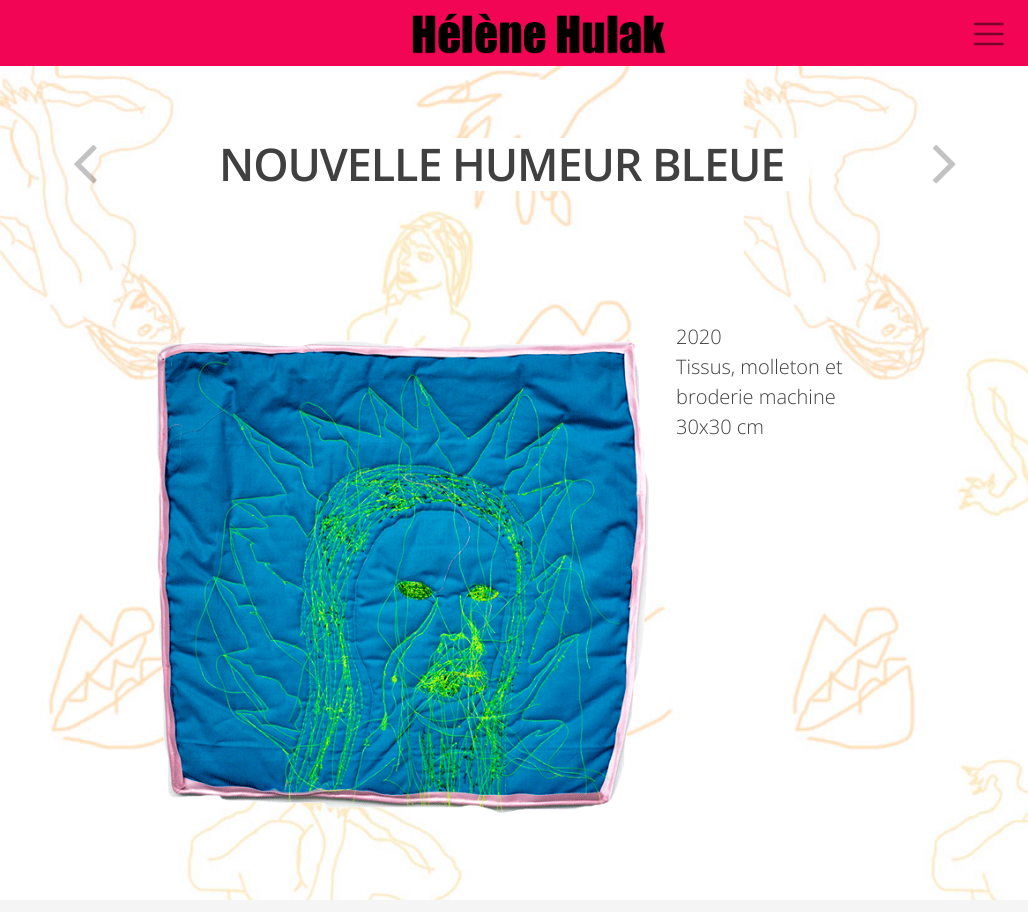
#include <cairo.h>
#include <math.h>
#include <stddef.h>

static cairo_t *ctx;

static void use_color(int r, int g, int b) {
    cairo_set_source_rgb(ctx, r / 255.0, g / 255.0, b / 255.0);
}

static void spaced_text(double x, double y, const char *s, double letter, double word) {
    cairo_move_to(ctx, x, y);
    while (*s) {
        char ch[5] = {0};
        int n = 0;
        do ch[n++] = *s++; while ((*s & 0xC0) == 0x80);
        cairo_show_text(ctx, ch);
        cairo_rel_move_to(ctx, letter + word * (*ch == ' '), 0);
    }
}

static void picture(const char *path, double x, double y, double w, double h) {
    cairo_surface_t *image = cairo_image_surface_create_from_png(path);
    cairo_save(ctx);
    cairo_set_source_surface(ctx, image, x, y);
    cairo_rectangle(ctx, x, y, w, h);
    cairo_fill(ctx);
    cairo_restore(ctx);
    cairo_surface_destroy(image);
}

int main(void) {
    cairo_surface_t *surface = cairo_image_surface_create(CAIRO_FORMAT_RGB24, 1028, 912);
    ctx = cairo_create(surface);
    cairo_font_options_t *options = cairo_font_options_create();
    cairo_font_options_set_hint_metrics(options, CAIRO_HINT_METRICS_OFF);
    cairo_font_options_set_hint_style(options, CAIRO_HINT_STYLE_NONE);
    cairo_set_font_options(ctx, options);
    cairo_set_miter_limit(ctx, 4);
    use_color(255, 255, 255);
    cairo_paint(ctx);
    picture("img1.png", 0, 66, 1028, 834);
    use_color(241, 5, 84);
    cairo_rectangle(ctx, 0, 0, 1028, 66);
    cairo_fill(ctx);
    picture("img2.png", 412, 13, 254, 41);
    cairo_new_path(ctx);
    cairo_move_to(ctx, 975, 24);
    cairo_line_to(ctx, 1002.5, 24);
    cairo_move_to(ctx, 975, 34);
    cairo_line_to(ctx, 1002.5, 34);
    cairo_move_to(ctx, 975, 44);
    cairo_line_to(ctx, 1002.5, 44);
    use_color(121, 3, 42);
    cairo_set_line_width(ctx, 2.5);
    cairo_set_line_cap(ctx, CAIRO_LINE_CAP_ROUND);
    cairo_stroke(ctx);
    picture("img3.png", 74, 145, 23, 39);
    use_color(255, 255, 255);
    cairo_rectangle(ctx, 440, 138, 369, 53);
    cairo_fill(ctx);
    cairo_select_font_face(ctx, "Open Sans SemiBold", CAIRO_FONT_SLANT_NORMAL, CAIRO_FONT_WEIGHT_NORMAL);
    cairo_set_font_size(ctx, 45);
    use_color(64, 64, 64);
    spaced_text(219, 181, "NOUVELLE HUMEUR BLEUE", -1.1, 0);
    picture("img4.png", 156, 340, 493, 474);
    cairo_select_font_face(ctx, "Open Sans Light", CAIRO_FONT_SLANT_NORMAL, CAIRO_FONT_WEIGHT_NORMAL);
    cairo_set_font_size(ctx, 20);
    cairo_move_to(ctx, 676, 344);
    cairo_show_text(ctx, "2020");
    cairo_move_to(ctx, 676, 374);
    cairo_show_text(ctx, "Tissus, molleton et");
    cairo_move_to(ctx, 676, 404);
    cairo_show_text(ctx, "broderie machine");
    cairo_move_to(ctx, 676, 434);
    cairo_show_text(ctx, "30x30 cm");
    picture("img5.png", 933, 145, 23, 39);
    use_color(245, 245, 245);
    cairo_rectangle(ctx, 0, 900, 1028, 12);
    cairo_fill(ctx);
    cairo_surface_write_to_png(surface, "result.png");
    cairo_font_options_destroy(options);
    cairo_destroy(ctx);
    cairo_surface_destroy(surface);
    return 0;
}
